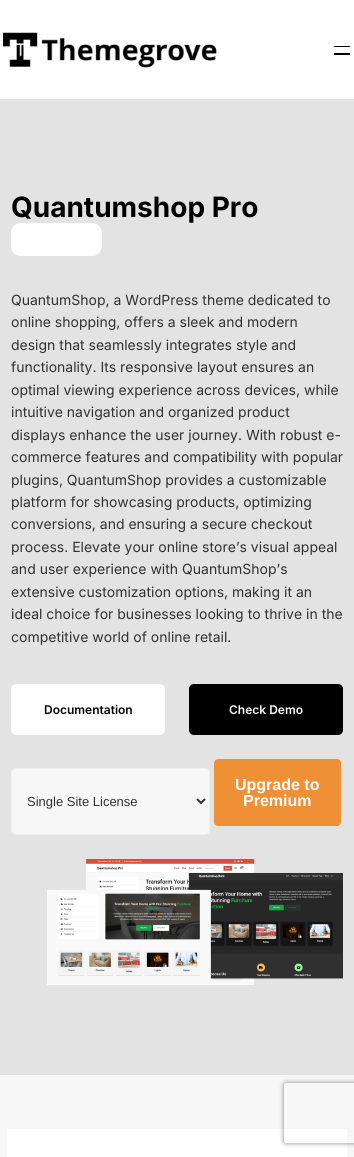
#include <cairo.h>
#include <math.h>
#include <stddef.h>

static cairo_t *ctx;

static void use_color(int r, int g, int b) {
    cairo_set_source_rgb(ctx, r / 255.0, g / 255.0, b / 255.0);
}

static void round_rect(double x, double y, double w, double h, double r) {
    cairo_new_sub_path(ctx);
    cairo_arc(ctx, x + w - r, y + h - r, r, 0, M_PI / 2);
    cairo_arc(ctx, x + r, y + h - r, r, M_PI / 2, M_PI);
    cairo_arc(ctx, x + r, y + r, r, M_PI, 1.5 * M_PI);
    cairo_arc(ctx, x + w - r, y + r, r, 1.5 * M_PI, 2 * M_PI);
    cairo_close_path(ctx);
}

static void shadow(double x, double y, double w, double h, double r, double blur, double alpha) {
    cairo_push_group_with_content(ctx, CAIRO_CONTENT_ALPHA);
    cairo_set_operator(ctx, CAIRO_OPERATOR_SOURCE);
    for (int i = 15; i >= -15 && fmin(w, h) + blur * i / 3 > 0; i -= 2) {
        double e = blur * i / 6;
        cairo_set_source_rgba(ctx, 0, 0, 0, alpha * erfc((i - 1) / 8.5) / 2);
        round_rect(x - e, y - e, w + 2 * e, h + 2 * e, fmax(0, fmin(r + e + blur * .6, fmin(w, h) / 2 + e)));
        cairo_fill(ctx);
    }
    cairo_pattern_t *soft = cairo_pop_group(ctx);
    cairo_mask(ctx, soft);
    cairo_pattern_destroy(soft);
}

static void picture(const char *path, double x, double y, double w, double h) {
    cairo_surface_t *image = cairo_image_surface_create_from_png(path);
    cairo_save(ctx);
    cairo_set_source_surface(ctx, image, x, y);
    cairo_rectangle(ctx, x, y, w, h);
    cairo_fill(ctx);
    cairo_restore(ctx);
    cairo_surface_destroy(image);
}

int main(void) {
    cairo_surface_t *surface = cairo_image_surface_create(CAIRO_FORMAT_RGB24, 354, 1157);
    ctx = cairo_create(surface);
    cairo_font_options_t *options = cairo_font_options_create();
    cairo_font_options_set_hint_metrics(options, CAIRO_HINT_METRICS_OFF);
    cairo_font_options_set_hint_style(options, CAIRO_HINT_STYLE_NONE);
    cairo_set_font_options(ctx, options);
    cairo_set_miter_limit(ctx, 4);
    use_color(255, 255, 255);
    cairo_paint(ctx);
    picture("img1.png", 3, 32, 214, 36);
    use_color(0, 0, 0);
    cairo_rectangle(ctx, 334, 46, 16, 1);
    cairo_fill(ctx);
    cairo_rectangle(ctx, 334, 53, 16, 2);
    cairo_fill(ctx);
    use_color(227, 227, 227);
    cairo_rectangle(ctx, 0, 99, 354, 976);
    cairo_fill(ctx);
    cairo_select_font_face(ctx, "Inter", CAIRO_FONT_SLANT_NORMAL, CAIRO_FONT_WEIGHT_BOLD);
    cairo_set_font_size(ctx, 28);
    use_color(0, 0, 0);
    cairo_move_to(ctx, 11, 217);
    cairo_show_text(ctx, "Quantumshop Pro");
    use_color(255, 255, 255);
    cairo_new_path(ctx);
    cairo_move_to(ctx, 20.5, 223);
    cairo_line_to(ctx, 30, 223);
    cairo_line_to(ctx, 30, 256);
    cairo_line_to(ctx, 20.5, 256);
    cairo_curve_to(ctx, 15.5, 256, 11, 251.5, 11, 246.5);
    cairo_line_to(ctx, 11, 232.5);
    cairo_curve_to(ctx, 11, 227.5, 15.5, 223, 20.5, 223);
    cairo_close_path(ctx);
    cairo_fill(ctx);
    cairo_rectangle(ctx, 30, 223, 52, 33);
    cairo_fill(ctx);
    cairo_new_path(ctx);
    cairo_move_to(ctx, 82, 223);
    cairo_line_to(ctx, 92, 223);
    cairo_curve_to(ctx, 97.5, 223, 102, 227.5, 102, 233);
    cairo_line_to(ctx, 102, 246);
    cairo_curve_to(ctx, 102, 251.5, 97.5, 256, 92, 256);
    cairo_line_to(ctx, 82, 256);
    cairo_close_path(ctx);
    cairo_fill(ctx);
    cairo_select_font_face(ctx, "Inter", CAIRO_FONT_SLANT_NORMAL, CAIRO_FONT_WEIGHT_NORMAL);
    cairo_set_font_size(ctx, 14);
    use_color(49, 49, 50);
    cairo_move_to(ctx, 11, 305);
    cairo_show_text(ctx, "QuantumShop, a WordPress theme dedicated to");
    cairo_move_to(ctx, 11, 327);
    cairo_show_text(ctx, "online shopping, offers a sleek and modern");
    cairo_move_to(ctx, 11, 350);
    cairo_show_text(ctx, "design that seamlessly integrates style and");
    cairo_move_to(ctx, 11, 372);
    cairo_show_text(ctx, "functionality. Its responsive layout ensures an");
    cairo_move_to(ctx, 11, 395);
    cairo_show_text(ctx, "optimal viewing experience across devices, while");
    cairo_move_to(ctx, 11, 417);
    cairo_show_text(ctx, "intuitive navigation and organized product");
    cairo_move_to(ctx, 11, 440);
    cairo_show_text(ctx, "displays enhance the user journey. With robust e-");
    cairo_move_to(ctx, 11, 462);
    cairo_show_text(ctx, "commerce features and compatibility with popular");
    cairo_move_to(ctx, 11, 485);
    cairo_show_text(ctx, "plugins, QuantumShop provides a customizable");
    cairo_move_to(ctx, 11, 507);
    cairo_show_text(ctx, "platform for showcasing products, optimizing");
    cairo_move_to(ctx, 11, 529);
    cairo_show_text(ctx, "conversions, and ensuring a secure checkout");
    cairo_move_to(ctx, 11, 552);
    cairo_show_text(ctx, "process. Elevate your online store’s visual appeal");
    cairo_move_to(ctx, 11, 574);
    cairo_show_text(ctx, "and user experience with QuantumShop’s");
    cairo_move_to(ctx, 11, 597);
    cairo_show_text(ctx, "extensive customization options, making it an");
    cairo_move_to(ctx, 11, 619);
    cairo_show_text(ctx, "ideal choice for businesses looking to thrive in the");
    cairo_move_to(ctx, 11, 642);
    cairo_show_text(ctx, "competitive world of online retail.");
    use_color(255, 255, 255);
    round_rect(11, 684, 154, 51, 5);
    cairo_fill(ctx);
    cairo_select_font_face(ctx, "Inter SemiBold", CAIRO_FONT_SLANT_NORMAL, CAIRO_FONT_WEIGHT_NORMAL);
    cairo_set_font_size(ctx, 12);
    use_color(0, 0, 0);
    cairo_move_to(ctx, 44, 714);
    cairo_show_text(ctx, "Documentation");
    round_rect(189, 684, 154, 51, 5);
    cairo_fill(ctx);
    use_color(255, 255, 250);
    cairo_move_to(ctx, 229, 714);
    cairo_show_text(ctx, "Check Demo");
    use_color(247, 247, 247);
    round_rect(11.5, 768.5, 198, 66, 4.5);
    cairo_fill_preserve(ctx);
    use_color(239, 239, 239);
    cairo_set_line_width(ctx, 1);
    cairo_stroke(ctx);
    cairo_new_path(ctx);
    cairo_move_to(ctx, 197, 799);
    cairo_line_to(ctx, 201, 803);
    cairo_line_to(ctx, 205, 799);
    use_color(49, 49, 50);
    cairo_set_line_width(ctx, 2);
    cairo_stroke(ctx);
    cairo_select_font_face(ctx, "Liberation Sans", CAIRO_FONT_SLANT_NORMAL, CAIRO_FONT_WEIGHT_NORMAL);
    cairo_set_font_size(ctx, 13);
    cairo_move_to(ctx, 27, 806);
    cairo_show_text(ctx, "Single Site License");
    use_color(239, 144, 54);
    round_rect(214, 759, 127, 67, 4);
    cairo_fill(ctx);
    cairo_select_font_face(ctx, "Liberation Sans", CAIRO_FONT_SLANT_NORMAL, CAIRO_FONT_WEIGHT_BOLD);
    cairo_set_font_size(ctx, 16);
    use_color(255, 255, 250);
    cairo_move_to(ctx, 235, 790);
    cairo_show_text(ctx, "Upgrade to");
    cairo_move_to(ctx, 243, 806);
    cairo_show_text(ctx, "Premium");
    picture("img2.png", 47, 859, 296, 126);
    use_color(247, 247, 247);
    cairo_rectangle(ctx, 0, 1075, 354, 82);
    cairo_fill(ctx);
    use_color(255, 255, 255);
    cairo_rectangle(ctx, 7, 1129, 340, 28);
    cairo_fill(ctx);
    cairo_save(ctx);
    cairo_set_fill_rule(ctx, CAIRO_FILL_RULE_EVEN_ODD);
    cairo_new_path(ctx);
    cairo_move_to(ctx, 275, 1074);
    cairo_line_to(ctx, 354, 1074);
    cairo_line_to(ctx, 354, 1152);
    cairo_line_to(ctx, 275, 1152);
    cairo_close_path(ctx);
    cairo_move_to(ctx, 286, 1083);
    cairo_line_to(ctx, 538, 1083);
    cairo_curve_to(ctx, 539, 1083, 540, 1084, 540, 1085);
    cairo_line_to(ctx, 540, 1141);
    cairo_curve_to(ctx, 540, 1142, 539, 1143, 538, 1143);
    cairo_line_to(ctx, 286, 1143);
    cairo_curve_to(ctx, 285, 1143, 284, 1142, 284, 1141);
    cairo_line_to(ctx, 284, 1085);
    cairo_curve_to(ctx, 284, 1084, 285, 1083, 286, 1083);
    cairo_close_path(ctx);
    cairo_clip(ctx);
    use_color(128, 128, 128);
    shadow(284, 1083, 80, 60, 2, 2.5, 1);
    cairo_restore(ctx);
    cairo_surface_write_to_png(surface, "result.png");
    cairo_font_options_destroy(options);
    cairo_destroy(ctx);
    cairo_surface_destroy(surface);
    return 0;
}
